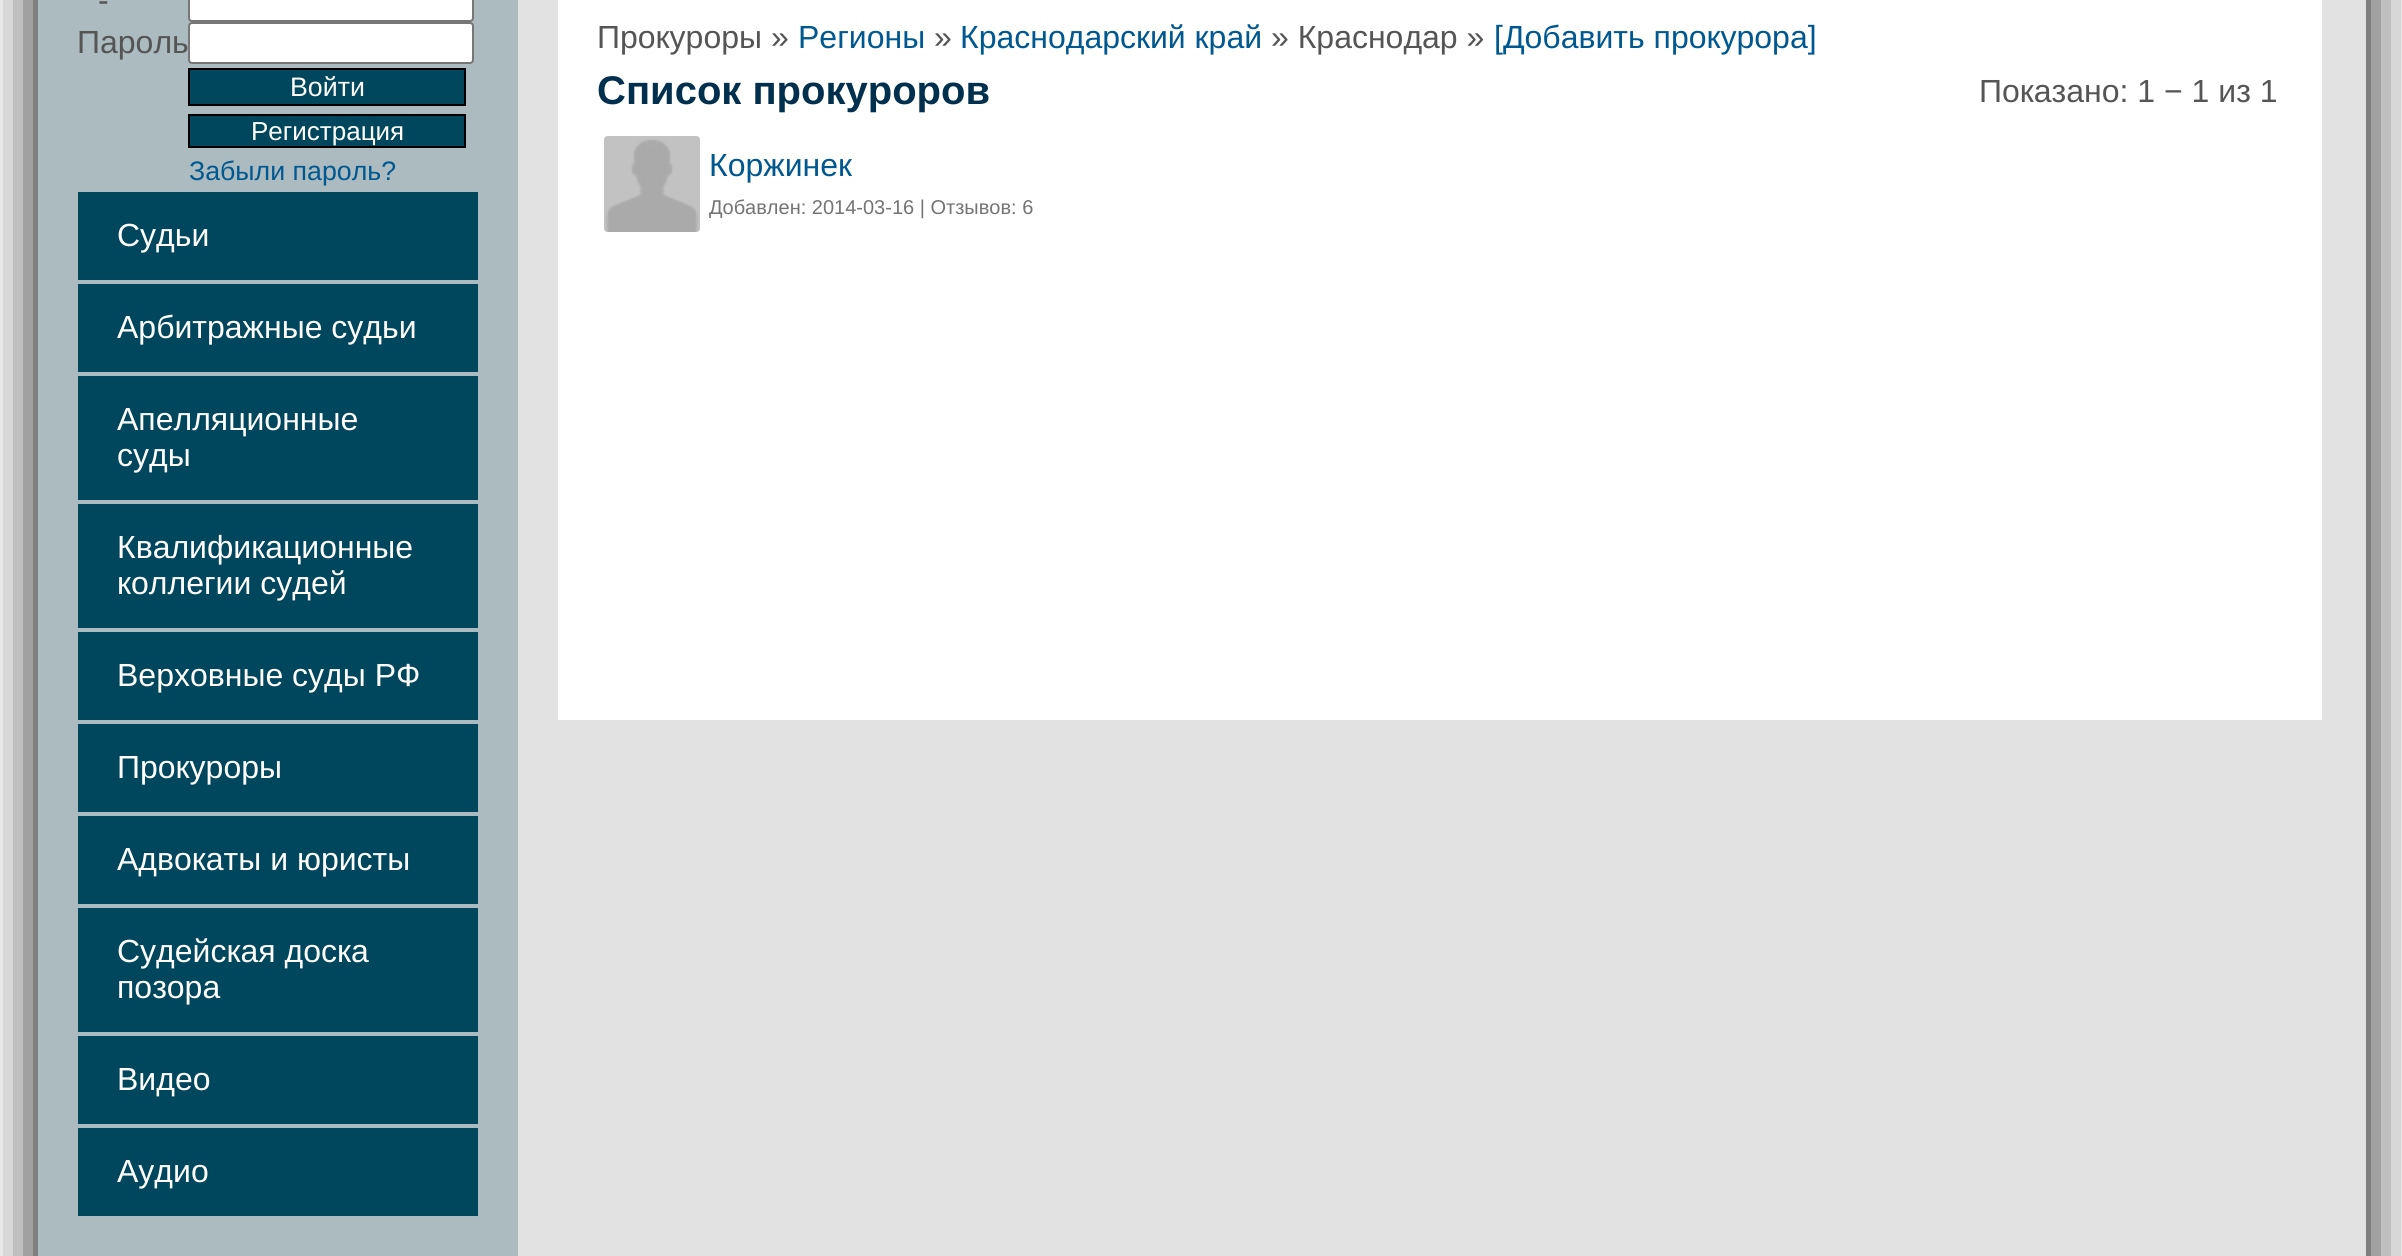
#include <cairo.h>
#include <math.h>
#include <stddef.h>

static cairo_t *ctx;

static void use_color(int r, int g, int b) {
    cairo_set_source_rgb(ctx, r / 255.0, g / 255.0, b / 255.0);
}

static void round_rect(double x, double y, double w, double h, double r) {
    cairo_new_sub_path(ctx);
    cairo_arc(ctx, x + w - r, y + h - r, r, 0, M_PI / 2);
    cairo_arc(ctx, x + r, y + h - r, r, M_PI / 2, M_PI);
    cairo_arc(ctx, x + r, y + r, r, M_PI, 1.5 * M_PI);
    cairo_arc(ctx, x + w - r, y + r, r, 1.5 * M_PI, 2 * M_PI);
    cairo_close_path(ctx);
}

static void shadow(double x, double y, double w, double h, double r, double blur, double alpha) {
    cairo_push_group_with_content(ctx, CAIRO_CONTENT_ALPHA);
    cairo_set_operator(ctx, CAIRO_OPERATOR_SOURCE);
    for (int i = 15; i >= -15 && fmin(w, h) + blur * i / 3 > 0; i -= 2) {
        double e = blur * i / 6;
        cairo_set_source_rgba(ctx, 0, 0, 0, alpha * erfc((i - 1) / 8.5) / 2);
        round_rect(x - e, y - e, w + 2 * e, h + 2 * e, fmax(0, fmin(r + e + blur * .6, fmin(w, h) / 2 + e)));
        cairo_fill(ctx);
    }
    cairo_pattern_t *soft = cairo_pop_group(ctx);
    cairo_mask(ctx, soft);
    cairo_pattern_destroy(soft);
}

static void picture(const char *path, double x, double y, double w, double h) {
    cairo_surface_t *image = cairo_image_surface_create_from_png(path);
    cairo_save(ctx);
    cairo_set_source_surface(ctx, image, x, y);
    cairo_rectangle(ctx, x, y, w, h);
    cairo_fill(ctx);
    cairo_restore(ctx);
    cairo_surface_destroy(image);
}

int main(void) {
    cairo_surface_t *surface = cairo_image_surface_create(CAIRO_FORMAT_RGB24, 2402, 1256);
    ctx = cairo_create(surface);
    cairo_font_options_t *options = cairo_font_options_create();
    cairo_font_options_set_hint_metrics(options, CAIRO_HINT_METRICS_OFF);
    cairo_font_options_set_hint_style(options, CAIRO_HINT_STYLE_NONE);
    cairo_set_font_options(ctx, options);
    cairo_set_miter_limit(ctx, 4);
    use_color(255, 255, 255);
    cairo_paint(ctx);
    use_color(0, 0, 0);
    shadow(38, -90, 2328, 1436, 0, 30, 1);
    use_color(172, 187, 192);
    cairo_rectangle(ctx, 38, 0, 480, 1256);
    cairo_fill(ctx);
    cairo_select_font_face(ctx, "Liberation Sans", CAIRO_FONT_SLANT_NORMAL, CAIRO_FONT_WEIGHT_NORMAL);
    cairo_set_font_size(ctx, 32);
    use_color(85, 85, 85);
    cairo_move_to(ctx, 98, 11);
    cairo_show_text(ctx, "-");
    use_color(255, 255, 255);
    round_rect(189, -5, 284, 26, 3);
    cairo_fill_preserve(ctx);
    use_color(118, 118, 118);
    cairo_stroke(ctx);
    use_color(85, 85, 85);
    cairo_move_to(ctx, 77, 53);
    cairo_show_text(ctx, "Пароль");
    use_color(255, 255, 255);
    round_rect(189, 23, 284, 40, 3);
    cairo_fill_preserve(ctx);
    use_color(118, 118, 118);
    cairo_stroke(ctx);
    use_color(0, 70, 93);
    cairo_rectangle(ctx, 189, 69, 276, 36);
    cairo_fill_preserve(ctx);
    use_color(0, 0, 0);
    cairo_stroke(ctx);
    cairo_set_font_size(ctx, 26.75);
    use_color(255, 255, 255);
    cairo_move_to(ctx, 290, 96);
    cairo_show_text(ctx, "Войти");
    use_color(0, 70, 93);
    cairo_rectangle(ctx, 189, 115, 276, 32);
    cairo_fill_preserve(ctx);
    use_color(0, 0, 0);
    cairo_stroke(ctx);
    cairo_set_font_size(ctx, 26);
    use_color(255, 255, 255);
    cairo_move_to(ctx, 251, 140);
    cairo_show_text(ctx, "Регистрация");
    cairo_set_font_size(ctx, 26.75);
    use_color(0, 88, 144);
    cairo_move_to(ctx, 189, 180);
    cairo_show_text(ctx, "Забыли пароль?");
    use_color(0, 70, 93);
    cairo_rectangle(ctx, 78, 192, 400, 88);
    cairo_fill(ctx);
    cairo_set_font_size(ctx, 32);
    use_color(255, 255, 255);
    cairo_move_to(ctx, 117, 246);
    cairo_show_text(ctx, "Судьи");
    use_color(0, 70, 93);
    cairo_rectangle(ctx, 78, 284, 400, 88);
    cairo_fill(ctx);
    use_color(255, 255, 255);
    cairo_move_to(ctx, 117, 338);
    cairo_show_text(ctx, "Арбитражные судьи");
    use_color(0, 70, 93);
    cairo_rectangle(ctx, 78, 376, 400, 124);
    cairo_fill(ctx);
    use_color(255, 255, 255);
    cairo_move_to(ctx, 117, 430);
    cairo_show_text(ctx, "Апелляционные");
    cairo_move_to(ctx, 117, 466);
    cairo_show_text(ctx, "суды");
    use_color(0, 70, 93);
    cairo_rectangle(ctx, 78, 504, 400, 124);
    cairo_fill(ctx);
    use_color(255, 255, 255);
    cairo_move_to(ctx, 117, 558);
    cairo_show_text(ctx, "Квалификационные");
    cairo_move_to(ctx, 117, 594);
    cairo_show_text(ctx, "коллегии судей");
    use_color(0, 70, 93);
    cairo_rectangle(ctx, 78, 632, 400, 88);
    cairo_fill(ctx);
    use_color(255, 255, 255);
    cairo_move_to(ctx, 117, 686);
    cairo_show_text(ctx, "Верховные суды РФ");
    use_color(0, 70, 93);
    cairo_rectangle(ctx, 78, 724, 400, 88);
    cairo_fill(ctx);
    use_color(255, 255, 255);
    cairo_move_to(ctx, 117, 778);
    cairo_show_text(ctx, "Прокуроры");
    use_color(0, 70, 93);
    cairo_rectangle(ctx, 78, 816, 400, 88);
    cairo_fill(ctx);
    use_color(255, 255, 255);
    cairo_move_to(ctx, 117, 870);
    cairo_show_text(ctx, "Адвокаты и юристы");
    use_color(0, 70, 93);
    cairo_rectangle(ctx, 78, 908, 400, 124);
    cairo_fill(ctx);
    use_color(255, 255, 255);
    cairo_move_to(ctx, 117, 962);
    cairo_show_text(ctx, "Судейская доска");
    cairo_move_to(ctx, 117, 998);
    cairo_show_text(ctx, "позора");
    use_color(0, 70, 93);
    cairo_rectangle(ctx, 78, 1036, 400, 88);
    cairo_fill(ctx);
    use_color(255, 255, 255);
    cairo_move_to(ctx, 117, 1090);
    cairo_show_text(ctx, "Видео");
    use_color(0, 70, 93);
    cairo_rectangle(ctx, 78, 1128, 400, 88);
    cairo_fill(ctx);
    use_color(255, 255, 255);
    cairo_move_to(ctx, 117, 1182);
    cairo_show_text(ctx, "Аудио");
    use_color(226, 226, 226);
    cairo_rectangle(ctx, 518, 0, 1848, 1256);
    cairo_fill(ctx);
    use_color(255, 255, 255);
    cairo_rectangle(ctx, 558, 0, 1764, 720);
    cairo_fill(ctx);
    use_color(85, 85, 85);
    cairo_move_to(ctx, 597, 48);
    cairo_show_text(ctx, "Прокуроры »");
    use_color(0, 88, 144);
    cairo_move_to(ctx, 798, 48);
    cairo_show_text(ctx, "Регионы");
    use_color(85, 85, 85);
    cairo_move_to(ctx, 934, 48);
    cairo_show_text(ctx, "»");
    use_color(0, 88, 144);
    cairo_move_to(ctx, 960, 48);
    cairo_show_text(ctx, "Краснодарский край");
    use_color(85, 85, 85);
    cairo_move_to(ctx, 1271, 48);
    cairo_show_text(ctx, "» Краснодар »");
    use_color(0, 88, 144);
    cairo_move_to(ctx, 1494, 48);
    cairo_show_text(ctx, "[Добавить прокурора]");
    cairo_select_font_face(ctx, "Liberation Sans", CAIRO_FONT_SLANT_NORMAL, CAIRO_FONT_WEIGHT_BOLD);
    cairo_set_font_size(ctx, 40);
    use_color(0, 48, 78);
    cairo_move_to(ctx, 597, 104);
    cairo_show_text(ctx, "Список прокуроров");
    cairo_select_font_face(ctx, "Liberation Sans", CAIRO_FONT_SLANT_NORMAL, CAIRO_FONT_WEIGHT_NORMAL);
    cairo_set_font_size(ctx, 32);
    use_color(85, 85, 85);
    cairo_move_to(ctx, 1979, 102);
    cairo_show_text(ctx, "Показано: 1 − 1 из 1");
    picture("img1.png", 604, 136, 96, 96);
    use_color(0, 88, 144);
    cairo_move_to(ctx, 709, 176);
    cairo_show_text(ctx, "Коржинек");
    cairo_set_font_size(ctx, 20);
    use_color(116, 116, 116);
    cairo_move_to(ctx, 709, 214);
    cairo_show_text(ctx, "Добавлен: 2014-03-16 | Отзывов: 6");
    cairo_surface_write_to_png(surface, "result.png");
    cairo_font_options_destroy(options);
    cairo_destroy(ctx);
    cairo_surface_destroy(surface);
    return 0;
}
